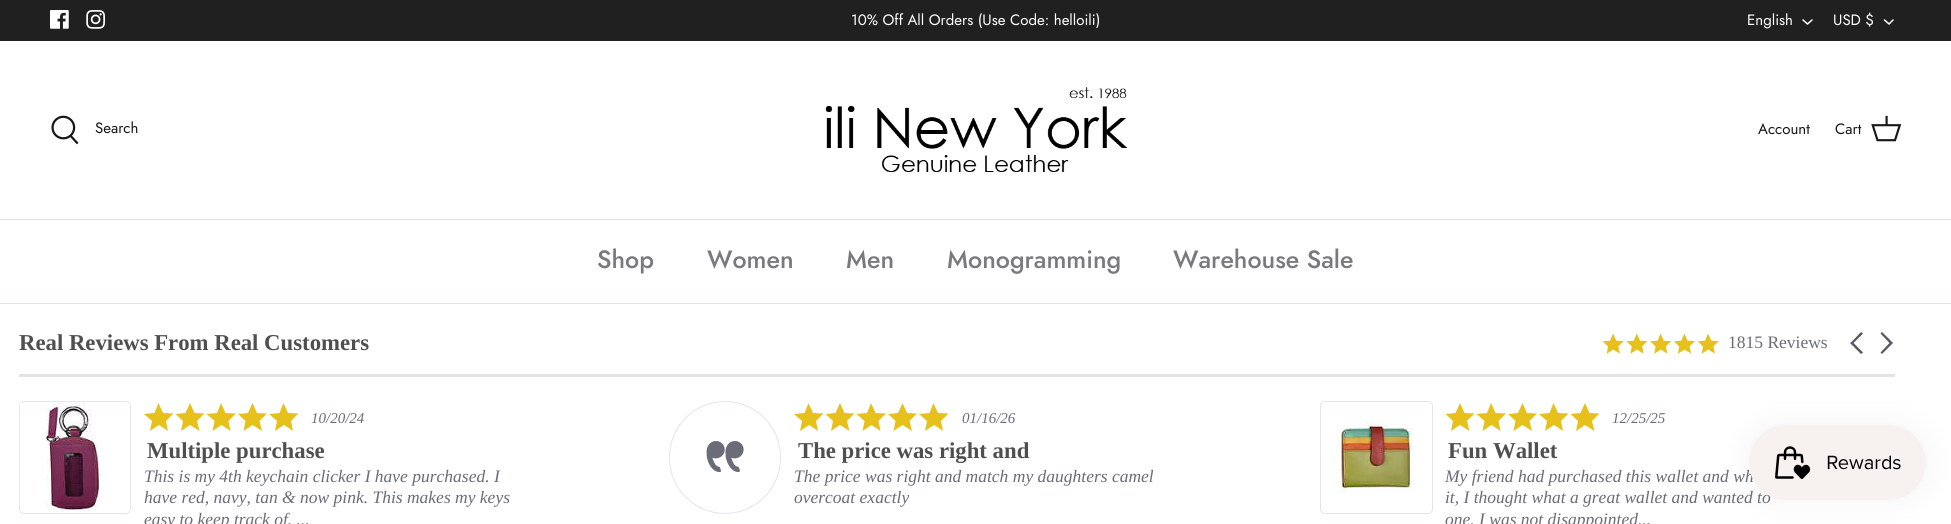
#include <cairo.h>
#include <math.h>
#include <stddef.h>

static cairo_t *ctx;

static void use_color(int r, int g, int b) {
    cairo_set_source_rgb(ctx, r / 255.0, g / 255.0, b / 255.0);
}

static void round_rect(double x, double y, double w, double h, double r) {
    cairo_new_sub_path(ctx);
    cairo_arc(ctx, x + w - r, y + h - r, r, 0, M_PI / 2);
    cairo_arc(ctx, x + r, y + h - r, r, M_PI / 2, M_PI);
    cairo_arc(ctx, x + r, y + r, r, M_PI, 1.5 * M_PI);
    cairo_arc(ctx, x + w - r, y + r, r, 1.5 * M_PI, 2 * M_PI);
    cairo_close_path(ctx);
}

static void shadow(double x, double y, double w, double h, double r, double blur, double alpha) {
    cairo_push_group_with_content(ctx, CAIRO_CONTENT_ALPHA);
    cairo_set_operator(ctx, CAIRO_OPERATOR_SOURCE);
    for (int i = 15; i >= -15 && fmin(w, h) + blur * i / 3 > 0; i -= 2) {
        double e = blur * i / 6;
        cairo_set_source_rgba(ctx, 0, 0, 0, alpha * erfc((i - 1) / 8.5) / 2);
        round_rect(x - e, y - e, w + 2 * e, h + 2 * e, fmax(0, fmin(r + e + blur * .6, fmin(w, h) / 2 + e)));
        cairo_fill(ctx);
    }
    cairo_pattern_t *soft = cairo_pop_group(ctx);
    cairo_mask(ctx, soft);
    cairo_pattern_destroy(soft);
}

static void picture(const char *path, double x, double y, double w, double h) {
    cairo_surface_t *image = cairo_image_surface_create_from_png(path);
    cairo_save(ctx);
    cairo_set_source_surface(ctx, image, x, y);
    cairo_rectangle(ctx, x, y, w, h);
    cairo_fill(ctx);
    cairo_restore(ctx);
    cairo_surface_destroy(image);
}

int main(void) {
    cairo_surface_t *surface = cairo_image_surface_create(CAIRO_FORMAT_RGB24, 1951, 524);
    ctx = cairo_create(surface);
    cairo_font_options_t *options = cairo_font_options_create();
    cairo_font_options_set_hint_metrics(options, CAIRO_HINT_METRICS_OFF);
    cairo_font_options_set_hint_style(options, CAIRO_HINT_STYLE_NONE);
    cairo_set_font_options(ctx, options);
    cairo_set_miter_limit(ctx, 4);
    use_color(255, 255, 255);
    cairo_paint(ctx);
    use_color(32, 32, 32);
    cairo_rectangle(ctx, 0, 0, 1951, 41);
    cairo_fill(ctx);
    picture("img1.png", 50, 10, 19, 19);
    picture("img2.png", 86, 10, 19, 19);
    cairo_select_font_face(ctx, "Jost", CAIRO_FONT_SLANT_NORMAL, CAIRO_FONT_WEIGHT_NORMAL);
    cairo_set_font_size(ctx, 15);
    use_color(255, 255, 255);
    cairo_move_to(ctx, 851, 25);
    cairo_show_text(ctx, "10% Off All Orders (Use Code: helloili)");
    cairo_move_to(ctx, 1747, 25);
    cairo_show_text(ctx, "English");
    cairo_new_path(ctx);
    cairo_move_to(ctx, 1803, 20);
    cairo_line_to(ctx, 1807.5, 24);
    cairo_line_to(ctx, 1812, 20);
    cairo_set_line_width(ctx, 1.5);
    cairo_set_line_cap(ctx, CAIRO_LINE_CAP_ROUND);
    cairo_set_line_join(ctx, CAIRO_LINE_JOIN_ROUND);
    cairo_stroke(ctx);
    cairo_move_to(ctx, 1833, 25);
    cairo_show_text(ctx, "USD $");
    cairo_new_path(ctx);
    cairo_move_to(ctx, 1884.5, 20);
    cairo_line_to(ctx, 1889, 24);
    cairo_line_to(ctx, 1893, 20);
    cairo_stroke(ctx);
    use_color(223, 227, 232);
    cairo_rectangle(ctx, 0, 219, 1951, 1);
    cairo_fill(ctx);
    picture("img3.png", 51, 115, 28, 30);
    use_color(23, 23, 23);
    cairo_move_to(ctx, 95, 133);
    cairo_show_text(ctx, "Search");
    picture("img4.png", 825, 87, 303, 85);
    cairo_move_to(ctx, 1758, 134);
    cairo_show_text(ctx, "Account");
    cairo_move_to(ctx, 1835, 134);
    cairo_show_text(ctx, "Cart");
    picture("img5.png", 1871, 115, 30, 27);
    use_color(223, 227, 232);
    cairo_rectangle(ctx, 0, 303, 1951, 1);
    cairo_fill(ctx);
    cairo_select_font_face(ctx, "Jost Medium", CAIRO_FONT_SLANT_NORMAL, CAIRO_FONT_WEIGHT_NORMAL);
    cairo_set_font_size(ctx, 25);
    use_color(120, 122, 124);
    cairo_move_to(ctx, 597, 268);
    cairo_show_text(ctx, "Shop");
    cairo_move_to(ctx, 707, 268);
    cairo_show_text(ctx, "Women");
    cairo_move_to(ctx, 846, 268);
    cairo_show_text(ctx, "Men");
    cairo_move_to(ctx, 947, 268);
    cairo_show_text(ctx, "Monogramming");
    cairo_move_to(ctx, 1173, 268);
    cairo_show_text(ctx, "Warehouse Sale");
    use_color(227, 227, 227);
    cairo_rectangle(ctx, 19, 374, 1876, 3);
    cairo_fill(ctx);
    cairo_select_font_face(ctx, "Liberation Serif", CAIRO_FONT_SLANT_NORMAL, CAIRO_FONT_WEIGHT_BOLD);
    cairo_set_font_size(ctx, 22.75);
    use_color(79, 79, 79);
    cairo_move_to(ctx, 19, 350);
    cairo_show_text(ctx, "Real Reviews From Real Customers");
    picture("img6.png", 1602, 333, 22, 21);
    picture("img7.png", 1626, 333, 22, 21);
    picture("img8.png", 1650, 333, 22, 21);
    picture("img9.png", 1673, 333, 22, 21);
    picture("img6.png", 1697, 333, 22, 21);
    cairo_select_font_face(ctx, "Liberation Serif", CAIRO_FONT_SLANT_NORMAL, CAIRO_FONT_WEIGHT_NORMAL);
    cairo_set_font_size(ctx, 17.5);
    use_color(106, 108, 119);
    cairo_move_to(ctx, 1728, 348);
    cairo_show_text(ctx, "1815 Reviews");
    use_color(86, 87, 95);
    cairo_new_path(ctx);
    cairo_move_to(ctx, 1852, 341.5);
    cairo_line_to(ctx, 1861, 332);
    cairo_line_to(ctx, 1863, 333.5);
    cairo_line_to(ctx, 1853.5, 343);
    cairo_line_to(ctx, 1863, 352.5);
    cairo_line_to(ctx, 1861, 354);
    cairo_line_to(ctx, 1850, 343);
    cairo_close_path(ctx);
    cairo_move_to(ctx, 1891.5, 341.5);
    cairo_line_to(ctx, 1882, 332);
    cairo_line_to(ctx, 1880.5, 333.5);
    cairo_line_to(ctx, 1889.5, 343);
    cairo_line_to(ctx, 1880.5, 352.5);
    cairo_line_to(ctx, 1882, 354);
    cairo_line_to(ctx, 1893, 343);
    cairo_close_path(ctx);
    cairo_fill(ctx);
    round_rect(19.5, 401.5, 111, 112, 4.5);
    use_color(225, 229, 238);
    cairo_set_line_width(ctx, 1);
    cairo_set_line_cap(ctx, CAIRO_LINE_CAP_BUTT);
    cairo_set_line_join(ctx, CAIRO_LINE_JOIN_MITER);
    cairo_stroke(ctx);
    picture("img10.png", 20, 402, 110, 110);
    use_color(231, 193, 27);
    cairo_new_path(ctx);
    cairo_move_to(ctx, 168, 431);
    cairo_line_to(ctx, 159, 425);
    cairo_line_to(ctx, 150, 431);
    cairo_line_to(ctx, 152, 421);
    cairo_line_to(ctx, 144, 414);
    cairo_line_to(ctx, 154.5, 413);
    cairo_line_to(ctx, 158.5, 403);
    cairo_line_to(ctx, 163, 413);
    cairo_line_to(ctx, 173.5, 413.5);
    cairo_line_to(ctx, 166, 421);
    cairo_close_path(ctx);
    cairo_move_to(ctx, 199.5, 431);
    cairo_line_to(ctx, 190, 425);
    cairo_line_to(ctx, 181, 431);
    cairo_line_to(ctx, 183, 421);
    cairo_line_to(ctx, 175.5, 414);
    cairo_line_to(ctx, 185.5, 413);
    cairo_line_to(ctx, 190, 403);
    cairo_line_to(ctx, 194.5, 413);
    cairo_line_to(ctx, 204.5, 413.5);
    cairo_line_to(ctx, 197, 421);
    cairo_close_path(ctx);
    cairo_fill(ctx);
    cairo_new_path(ctx);
    cairo_move_to(ctx, 230.5, 431);
    cairo_line_to(ctx, 221.5, 425);
    cairo_line_to(ctx, 212.5, 431);
    cairo_line_to(ctx, 214.5, 421);
    cairo_line_to(ctx, 206.5, 414);
    cairo_line_to(ctx, 217, 413);
    cairo_line_to(ctx, 221, 403);
    cairo_line_to(ctx, 225.5, 413);
    cairo_line_to(ctx, 236, 413.5);
    cairo_line_to(ctx, 228.5, 421);
    cairo_close_path(ctx);
    cairo_move_to(ctx, 262, 431);
    cairo_line_to(ctx, 252.5, 425);
    cairo_line_to(ctx, 243.5, 431);
    cairo_line_to(ctx, 245.5, 421);
    cairo_line_to(ctx, 238, 414);
    cairo_line_to(ctx, 248, 413);
    cairo_line_to(ctx, 252.5, 403);
    cairo_line_to(ctx, 257, 413);
    cairo_line_to(ctx, 267, 413.5);
    cairo_line_to(ctx, 259.5, 421);
    cairo_close_path(ctx);
    cairo_fill(ctx);
    cairo_new_path(ctx);
    cairo_move_to(ctx, 293, 431);
    cairo_line_to(ctx, 284, 425);
    cairo_line_to(ctx, 275, 431);
    cairo_line_to(ctx, 277, 421);
    cairo_line_to(ctx, 269, 414);
    cairo_line_to(ctx, 279.5, 413);
    cairo_line_to(ctx, 283.5, 403);
    cairo_line_to(ctx, 288, 413);
    cairo_line_to(ctx, 298.5, 413.5);
    cairo_line_to(ctx, 291, 421);
    cairo_close_path(ctx);
    cairo_fill(ctx);
    cairo_select_font_face(ctx, "Liberation Serif", CAIRO_FONT_SLANT_ITALIC, CAIRO_FONT_WEIGHT_NORMAL);
    cairo_set_font_size(ctx, 15);
    use_color(106, 108, 119);
    cairo_move_to(ctx, 311, 423);
    cairo_show_text(ctx, "10/20/24");
    cairo_select_font_face(ctx, "Liberation Serif", CAIRO_FONT_SLANT_NORMAL, CAIRO_FONT_WEIGHT_BOLD);
    cairo_set_font_size(ctx, 22.75);
    use_color(79, 79, 79);
    cairo_move_to(ctx, 147, 458);
    cairo_show_text(ctx, "Multiple purchase");
    cairo_select_font_face(ctx, "Liberation Serif", CAIRO_FONT_SLANT_ITALIC, CAIRO_FONT_WEIGHT_NORMAL);
    cairo_set_font_size(ctx, 17.5);
    use_color(106, 108, 119);
    cairo_move_to(ctx, 144, 482);
    cairo_show_text(ctx, "This is my 4th keychain clicker I have purchased. I");
    cairo_move_to(ctx, 144, 503);
    cairo_show_text(ctx, "have red, navy, tan & now pink. This makes my keys");
    cairo_move_to(ctx, 144, 525);
    cairo_show_text(ctx, "easy to keep track of. ...");
    round_rect(669.5, 401.5, 111, 112, 55.5);
    use_color(225, 229, 238);
    cairo_stroke(ctx);
    picture("img11.png", 706, 441, 38, 31);
    use_color(231, 193, 27);
    cairo_new_path(ctx);
    cairo_move_to(ctx, 818, 431);
    cairo_line_to(ctx, 809, 425);
    cairo_line_to(ctx, 800, 431);
    cairo_line_to(ctx, 802, 421);
    cairo_line_to(ctx, 794, 414);
    cairo_line_to(ctx, 804.5, 413);
    cairo_line_to(ctx, 808.5, 403);
    cairo_line_to(ctx, 813, 413);
    cairo_line_to(ctx, 823.5, 413.5);
    cairo_line_to(ctx, 816, 421);
    cairo_close_path(ctx);
    cairo_move_to(ctx, 849.5, 431);
    cairo_line_to(ctx, 840, 425);
    cairo_line_to(ctx, 831, 431);
    cairo_line_to(ctx, 833, 421);
    cairo_line_to(ctx, 825.5, 414);
    cairo_line_to(ctx, 835.5, 413);
    cairo_line_to(ctx, 840, 403);
    cairo_line_to(ctx, 844.5, 413);
    cairo_line_to(ctx, 854.5, 413.5);
    cairo_line_to(ctx, 847, 421);
    cairo_close_path(ctx);
    cairo_fill(ctx);
    cairo_new_path(ctx);
    cairo_move_to(ctx, 880.5, 431);
    cairo_line_to(ctx, 871.5, 425);
    cairo_line_to(ctx, 862.5, 431);
    cairo_line_to(ctx, 864.5, 421);
    cairo_line_to(ctx, 856.5, 414);
    cairo_line_to(ctx, 867, 413);
    cairo_line_to(ctx, 871, 403);
    cairo_line_to(ctx, 875.5, 413);
    cairo_line_to(ctx, 886, 413.5);
    cairo_line_to(ctx, 878.5, 421);
    cairo_close_path(ctx);
    cairo_move_to(ctx, 912, 431);
    cairo_line_to(ctx, 902.5, 425);
    cairo_line_to(ctx, 893.5, 431);
    cairo_line_to(ctx, 895.5, 421);
    cairo_line_to(ctx, 888, 414);
    cairo_line_to(ctx, 898, 413);
    cairo_line_to(ctx, 902.5, 403);
    cairo_line_to(ctx, 907, 413);
    cairo_line_to(ctx, 917, 413.5);
    cairo_line_to(ctx, 909.5, 421);
    cairo_close_path(ctx);
    cairo_fill(ctx);
    cairo_new_path(ctx);
    cairo_move_to(ctx, 943, 431);
    cairo_line_to(ctx, 934, 425);
    cairo_line_to(ctx, 925, 431);
    cairo_line_to(ctx, 927, 421);
    cairo_line_to(ctx, 919, 414);
    cairo_line_to(ctx, 929.5, 413);
    cairo_line_to(ctx, 933.5, 403);
    cairo_line_to(ctx, 938, 413);
    cairo_line_to(ctx, 948.5, 413.5);
    cairo_line_to(ctx, 941, 421);
    cairo_close_path(ctx);
    cairo_fill(ctx);
    cairo_set_font_size(ctx, 15);
    use_color(106, 108, 119);
    cairo_move_to(ctx, 962, 423);
    cairo_show_text(ctx, "01/16/26");
    cairo_select_font_face(ctx, "Liberation Serif", CAIRO_FONT_SLANT_NORMAL, CAIRO_FONT_WEIGHT_BOLD);
    cairo_set_font_size(ctx, 22.75);
    use_color(79, 79, 79);
    cairo_move_to(ctx, 798, 458);
    cairo_show_text(ctx, "The price was right and");
    cairo_select_font_face(ctx, "Liberation Serif", CAIRO_FONT_SLANT_ITALIC, CAIRO_FONT_WEIGHT_NORMAL);
    cairo_set_font_size(ctx, 17.5);
    use_color(106, 108, 119);
    cairo_move_to(ctx, 794, 482);
    cairo_show_text(ctx, "The price was right and match my daughters camel");
    cairo_move_to(ctx, 794, 503);
    cairo_show_text(ctx, "overcoat exactly");
    round_rect(1320.5, 401.5, 112, 112, 4.5);
    use_color(225, 229, 238);
    cairo_stroke(ctx);
    picture("img12.png", 1336, 418, 77, 76);
    use_color(231, 193, 27);
    cairo_new_path(ctx);
    cairo_move_to(ctx, 1469.5, 431);
    cairo_line_to(ctx, 1460, 425);
    cairo_line_to(ctx, 1451, 431);
    cairo_line_to(ctx, 1453, 421);
    cairo_line_to(ctx, 1445.5, 414);
    cairo_line_to(ctx, 1455.5, 413);
    cairo_line_to(ctx, 1460, 403);
    cairo_line_to(ctx, 1464.5, 413);
    cairo_line_to(ctx, 1474.5, 413.5);
    cairo_line_to(ctx, 1467, 421);
    cairo_close_path(ctx);
    cairo_move_to(ctx, 1500.5, 431);
    cairo_line_to(ctx, 1491.5, 425);
    cairo_line_to(ctx, 1482.5, 431);
    cairo_line_to(ctx, 1484.5, 421);
    cairo_line_to(ctx, 1476.5, 414);
    cairo_line_to(ctx, 1487, 413);
    cairo_line_to(ctx, 1491, 403);
    cairo_line_to(ctx, 1495.5, 413);
    cairo_line_to(ctx, 1506, 413.5);
    cairo_line_to(ctx, 1498.5, 421);
    cairo_close_path(ctx);
    cairo_fill(ctx);
    cairo_new_path(ctx);
    cairo_move_to(ctx, 1532, 431);
    cairo_line_to(ctx, 1522.5, 425);
    cairo_line_to(ctx, 1513.5, 431);
    cairo_line_to(ctx, 1515.5, 421);
    cairo_line_to(ctx, 1508, 414);
    cairo_line_to(ctx, 1518, 413);
    cairo_line_to(ctx, 1522.5, 403);
    cairo_line_to(ctx, 1527, 413);
    cairo_line_to(ctx, 1537, 413.5);
    cairo_line_to(ctx, 1529.5, 421);
    cairo_close_path(ctx);
    cairo_move_to(ctx, 1563, 431);
    cairo_line_to(ctx, 1554, 425);
    cairo_line_to(ctx, 1545, 431);
    cairo_line_to(ctx, 1547, 421);
    cairo_line_to(ctx, 1539, 414);
    cairo_line_to(ctx, 1549.5, 413);
    cairo_line_to(ctx, 1553.5, 403);
    cairo_line_to(ctx, 1558, 413);
    cairo_line_to(ctx, 1568.5, 413.5);
    cairo_line_to(ctx, 1561, 421);
    cairo_close_path(ctx);
    cairo_fill(ctx);
    cairo_new_path(ctx);
    cairo_move_to(ctx, 1594.5, 431);
    cairo_line_to(ctx, 1585, 425);
    cairo_line_to(ctx, 1576, 431);
    cairo_line_to(ctx, 1578, 421);
    cairo_line_to(ctx, 1570.5, 414);
    cairo_line_to(ctx, 1580.5, 413);
    cairo_line_to(ctx, 1585, 403);
    cairo_line_to(ctx, 1589.5, 413);
    cairo_line_to(ctx, 1599.5, 413.5);
    cairo_line_to(ctx, 1592, 421);
    cairo_close_path(ctx);
    cairo_fill(ctx);
    cairo_set_font_size(ctx, 15);
    use_color(106, 108, 119);
    cairo_move_to(ctx, 1612, 423);
    cairo_show_text(ctx, "12/25/25");
    cairo_select_font_face(ctx, "Liberation Serif", CAIRO_FONT_SLANT_NORMAL, CAIRO_FONT_WEIGHT_BOLD);
    cairo_set_font_size(ctx, 22.75);
    use_color(79, 79, 79);
    cairo_move_to(ctx, 1448, 458);
    cairo_show_text(ctx, "Fun Wallet");
    cairo_select_font_face(ctx, "Liberation Serif", CAIRO_FONT_SLANT_ITALIC, CAIRO_FONT_WEIGHT_NORMAL);
    cairo_set_font_size(ctx, 17.5);
    use_color(106, 108, 119);
    cairo_move_to(ctx, 1445, 482);
    cairo_show_text(ctx, "My friend had purchased this wallet and wh");
    cairo_move_to(ctx, 1445, 503);
    cairo_show_text(ctx, "it, I thought what a great wallet and wanted to");
    cairo_move_to(ctx, 1445, 525);
    cairo_show_text(ctx, "one. I was not disappointed...");
    use_color(0, 0, 0);
    shadow(1749, 425, 177, 75, 37.5, 15.5, 0.05);
    picture("img13.png", 1749, 425, 177, 75);
    cairo_surface_write_to_png(surface, "result.png");
    cairo_font_options_destroy(options);
    cairo_destroy(ctx);
    cairo_surface_destroy(surface);
    return 0;
}
